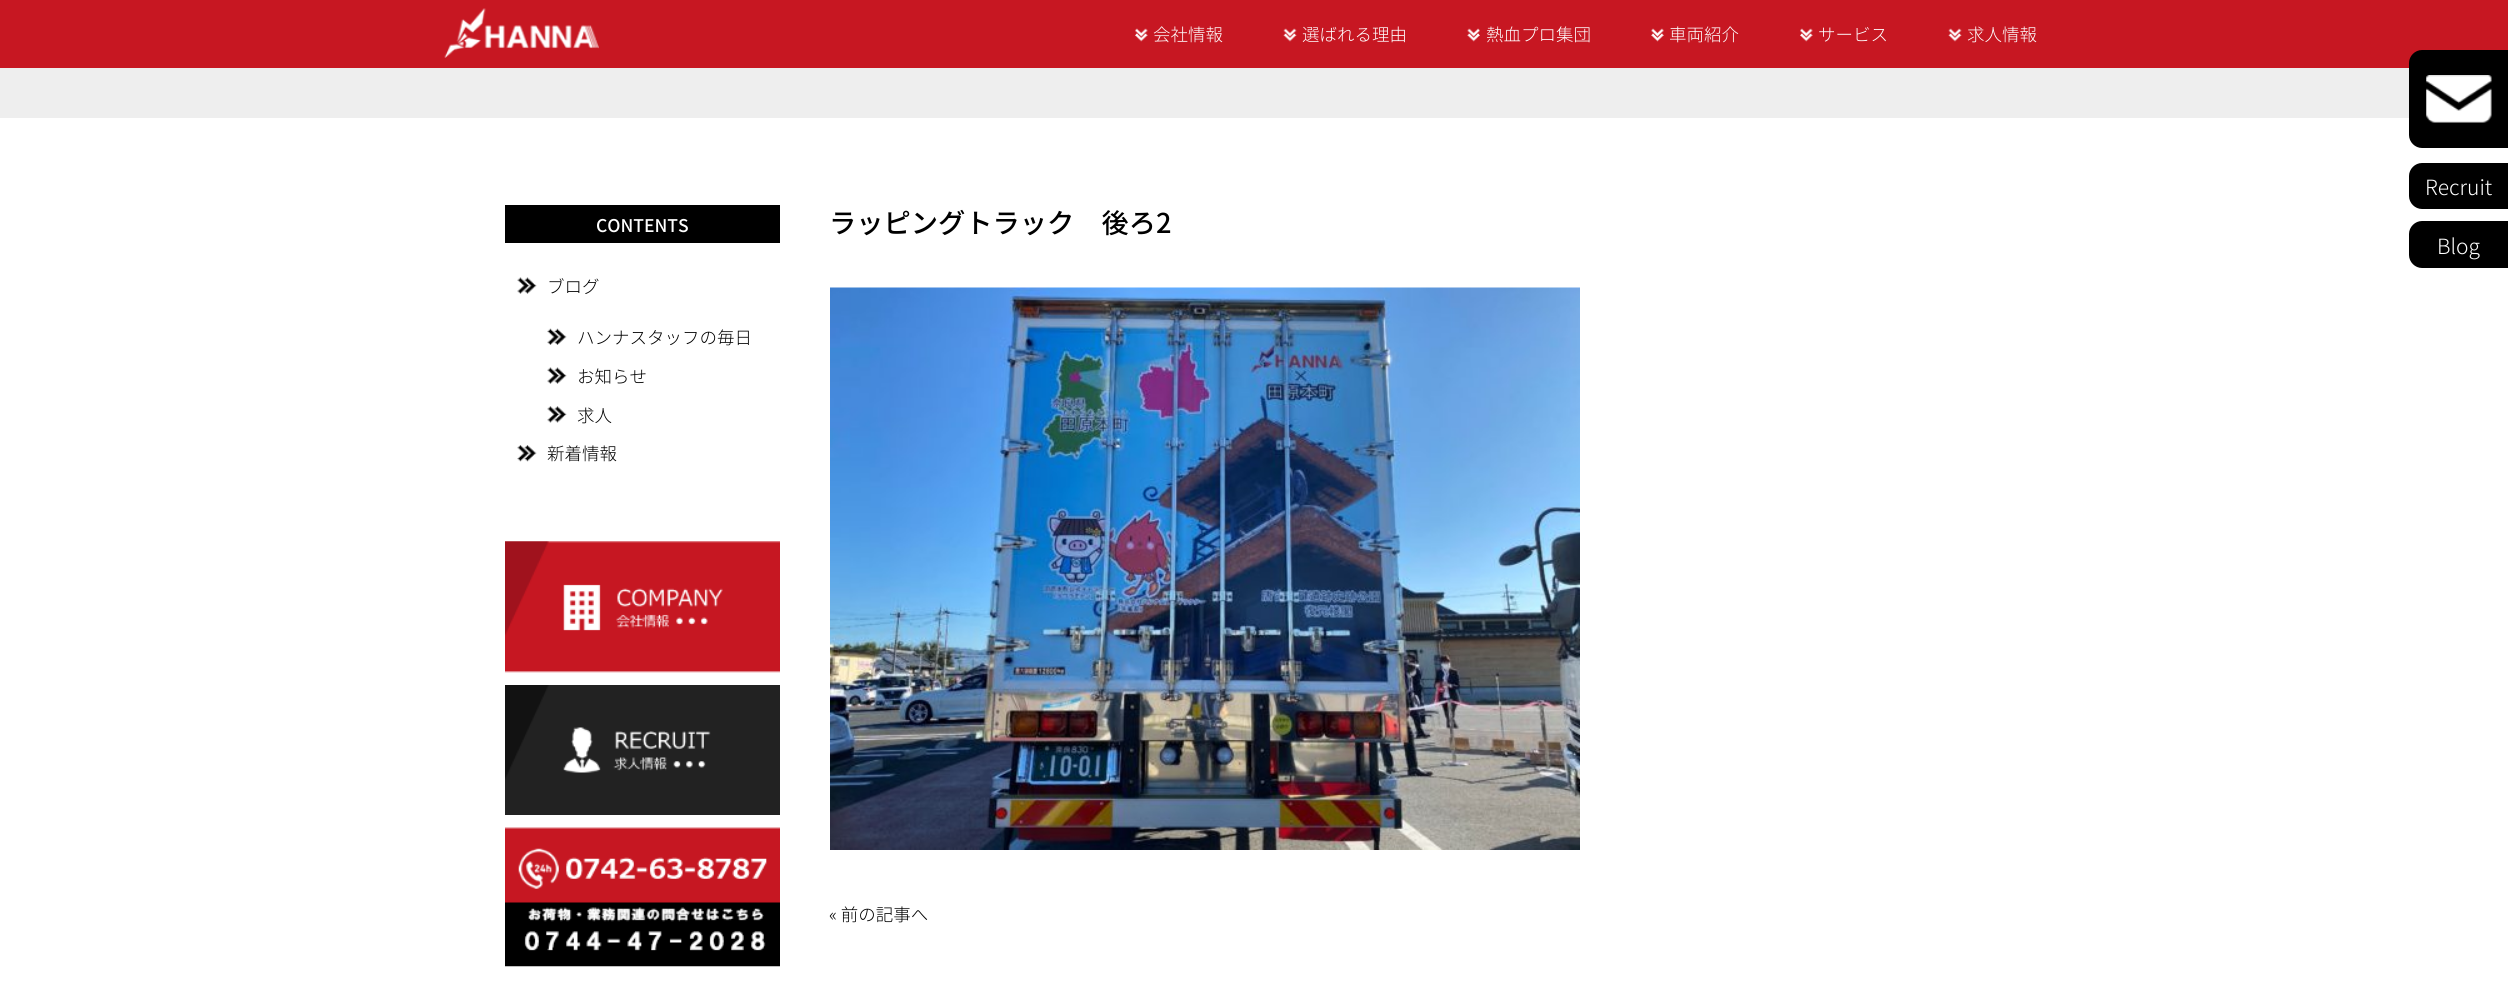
#include <cairo.h>
#include <math.h>
#include <stddef.h>

static cairo_t *ctx;

static void use_color(int r, int g, int b) {
    cairo_set_source_rgb(ctx, r / 255.0, g / 255.0, b / 255.0);
}

static void picture(const char *path, double x, double y, double w, double h) {
    cairo_surface_t *image = cairo_image_surface_create_from_png(path);
    cairo_save(ctx);
    cairo_set_source_surface(ctx, image, x, y);
    cairo_rectangle(ctx, x, y, w, h);
    cairo_fill(ctx);
    cairo_restore(ctx);
    cairo_surface_destroy(image);
}

int main(void) {
    cairo_surface_t *surface = cairo_image_surface_create(CAIRO_FORMAT_RGB24, 2508, 995);
    ctx = cairo_create(surface);
    cairo_font_options_t *options = cairo_font_options_create();
    cairo_font_options_set_hint_metrics(options, CAIRO_HINT_METRICS_OFF);
    cairo_font_options_set_hint_style(options, CAIRO_HINT_STYLE_NONE);
    cairo_set_font_options(ctx, options);
    cairo_set_miter_limit(ctx, 4);
    use_color(255, 255, 255);
    cairo_paint(ctx);
    use_color(199, 23, 34);
    cairo_rectangle(ctx, 0, 0, 2508, 68);
    cairo_fill(ctx);
    picture("img1.png", 444, 8, 155, 50);
    picture("img2.png", 1135, 28, 13, 14);
    cairo_select_font_face(ctx, "Noto Sans JP Light", CAIRO_FONT_SLANT_NORMAL, CAIRO_FONT_WEIGHT_NORMAL);
    cairo_set_font_size(ctx, 17.5);
    use_color(255, 255, 255);
    cairo_move_to(ctx, 1153, 41);
    cairo_show_text(ctx, "会社情報");
    picture("img3.png", 1283, 28, 14, 14);
    cairo_move_to(ctx, 1302, 41);
    cairo_show_text(ctx, "選ばれる理由");
    picture("img4.png", 1467, 28, 13, 14);
    cairo_move_to(ctx, 1486, 41);
    cairo_show_text(ctx, "熱血プロ集団");
    picture("img5.png", 1651, 28, 13, 14);
    cairo_move_to(ctx, 1669, 41);
    cairo_show_text(ctx, "車両紹介");
    picture("img2.png", 1800, 28, 13, 14);
    cairo_move_to(ctx, 1818, 41);
    cairo_show_text(ctx, "サービス");
    picture("img3.png", 1948, 28, 14, 14);
    cairo_move_to(ctx, 1967, 41);
    cairo_show_text(ctx, "求人情報");
    use_color(238, 238, 238);
    cairo_rectangle(ctx, 0, 68, 2409, 50);
    cairo_fill(ctx);
    use_color(0, 0, 0);
    cairo_new_path(ctx);
    cairo_move_to(ctx, 2422, 50);
    cairo_line_to(ctx, 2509, 50);
    cairo_line_to(ctx, 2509, 148);
    cairo_line_to(ctx, 2422, 148);
    cairo_curve_to(ctx, 2415, 148, 2409, 142, 2409, 135);
    cairo_line_to(ctx, 2409, 63);
    cairo_curve_to(ctx, 2409, 56, 2415, 50, 2422, 50);
    cairo_close_path(ctx);
    cairo_fill(ctx);
    picture("img6.png", 2426, 75, 66, 48);
    cairo_rectangle(ctx, 505, 205, 275, 38);
    cairo_fill(ctx);
    cairo_select_font_face(ctx, "Noto Sans JP Medium", CAIRO_FONT_SLANT_NORMAL, CAIRO_FONT_WEIGHT_NORMAL);
    use_color(255, 255, 255);
    cairo_move_to(ctx, 596, 232);
    cairo_show_text(ctx, "CONTENTS");
    picture("img7.png", 517, 277, 20, 17);
    cairo_select_font_face(ctx, "Noto Sans JP Light", CAIRO_FONT_SLANT_NORMAL, CAIRO_FONT_WEIGHT_NORMAL);
    use_color(0, 0, 0);
    cairo_move_to(ctx, 547, 293);
    cairo_show_text(ctx, "ブログ");
    picture("img8.png", 547, 328, 20, 17);
    cairo_move_to(ctx, 577, 344);
    cairo_show_text(ctx, "ハンナスタッフの毎日");
    picture("img7.png", 547, 367, 20, 17);
    cairo_move_to(ctx, 577, 383);
    cairo_show_text(ctx, "お知らせ");
    picture("img9.png", 547, 406, 20, 17);
    cairo_move_to(ctx, 577, 422);
    cairo_show_text(ctx, "求人");
    picture("img10.png", 517, 445, 20, 17);
    cairo_move_to(ctx, 547, 460);
    cairo_show_text(ctx, "新着情報");
    picture("img11.png", 505, 541, 275, 132);
    picture("img12.png", 505, 685, 275, 130);
    picture("img13.png", 505, 827, 275, 140);
    cairo_select_font_face(ctx, "Noto Sans JP Medium", CAIRO_FONT_SLANT_NORMAL, CAIRO_FONT_WEIGHT_NORMAL);
    cairo_set_font_size(ctx, 27.25);
    cairo_move_to(ctx, 829, 233);
    cairo_show_text(ctx, "ラッピングトラック　後ろ2");
    picture("img14.png", 830, 287, 750, 563);
    cairo_select_font_face(ctx, "Noto Sans JP Light", CAIRO_FONT_SLANT_NORMAL, CAIRO_FONT_WEIGHT_NORMAL);
    cairo_set_font_size(ctx, 17.5);
    cairo_move_to(ctx, 829, 921);
    cairo_show_text(ctx, "« 前の記事へ");
    cairo_new_path(ctx);
    cairo_move_to(ctx, 2422, 163);
    cairo_line_to(ctx, 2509, 163);
    cairo_line_to(ctx, 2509, 209);
    cairo_line_to(ctx, 2422, 209);
    cairo_curve_to(ctx, 2415, 209, 2409, 203, 2409, 196);
    cairo_line_to(ctx, 2409, 176);
    cairo_curve_to(ctx, 2409, 169, 2415, 163, 2422, 163);
    cairo_close_path(ctx);
    cairo_fill(ctx);
    cairo_set_font_size(ctx, 21);
    use_color(255, 255, 255);
    cairo_move_to(ctx, 2425, 195);
    cairo_show_text(ctx, "Recruit");
    use_color(0, 0, 0);
    cairo_new_path(ctx);
    cairo_move_to(ctx, 2422, 221);
    cairo_line_to(ctx, 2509, 221);
    cairo_line_to(ctx, 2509, 268);
    cairo_line_to(ctx, 2422, 268);
    cairo_curve_to(ctx, 2415, 268, 2409, 262, 2409, 255);
    cairo_line_to(ctx, 2409, 234);
    cairo_curve_to(ctx, 2409, 227, 2415, 221, 2422, 221);
    cairo_close_path(ctx);
    cairo_fill(ctx);
    use_color(255, 255, 255);
    cairo_move_to(ctx, 2437, 254);
    cairo_show_text(ctx, "Blog");
    cairo_surface_write_to_png(surface, "result.png");
    cairo_font_options_destroy(options);
    cairo_destroy(ctx);
    cairo_surface_destroy(surface);
    return 0;
}
